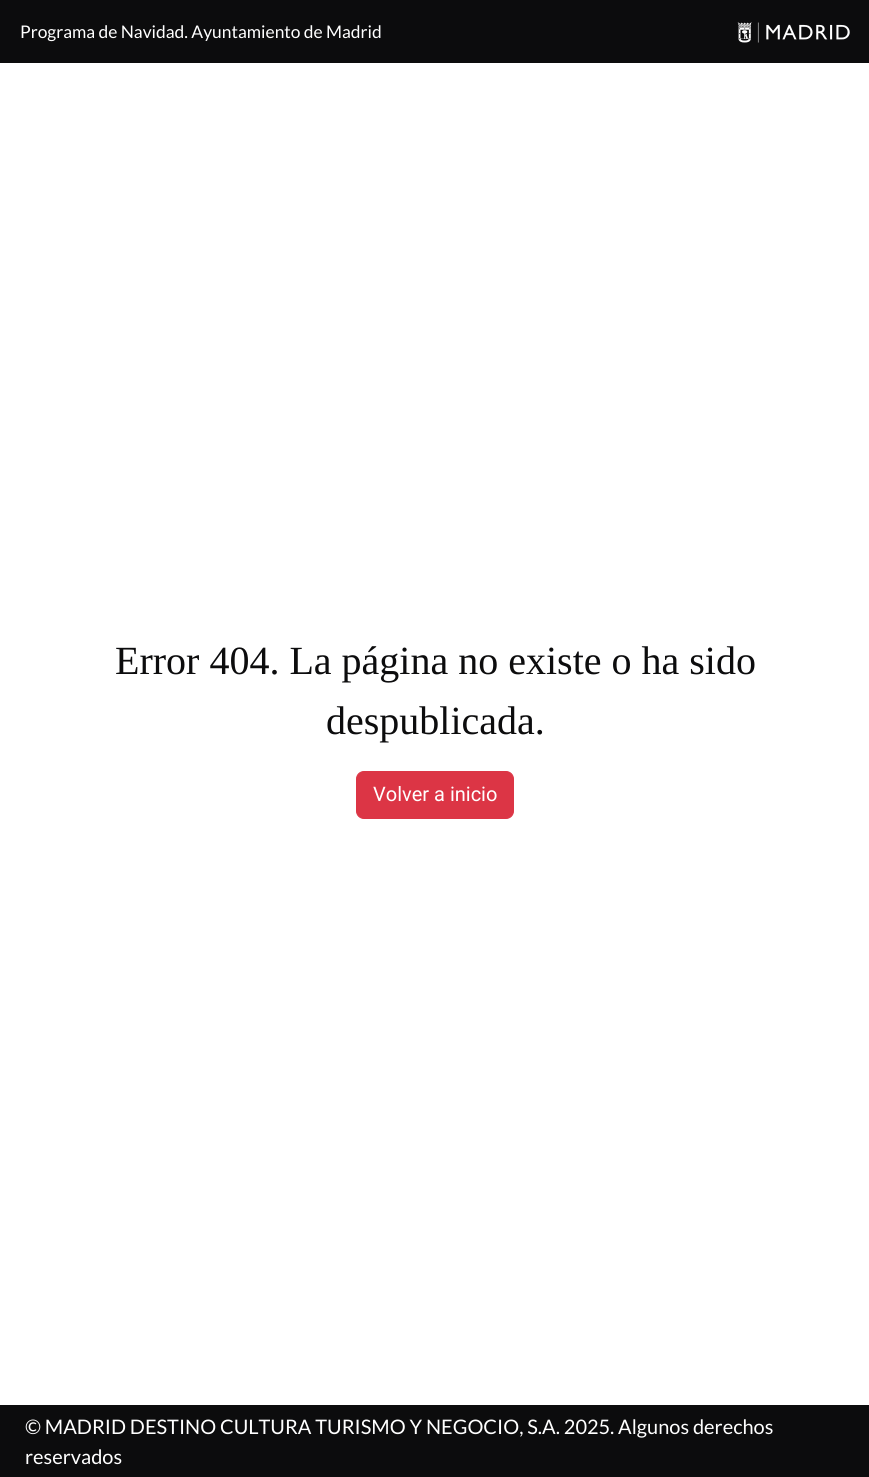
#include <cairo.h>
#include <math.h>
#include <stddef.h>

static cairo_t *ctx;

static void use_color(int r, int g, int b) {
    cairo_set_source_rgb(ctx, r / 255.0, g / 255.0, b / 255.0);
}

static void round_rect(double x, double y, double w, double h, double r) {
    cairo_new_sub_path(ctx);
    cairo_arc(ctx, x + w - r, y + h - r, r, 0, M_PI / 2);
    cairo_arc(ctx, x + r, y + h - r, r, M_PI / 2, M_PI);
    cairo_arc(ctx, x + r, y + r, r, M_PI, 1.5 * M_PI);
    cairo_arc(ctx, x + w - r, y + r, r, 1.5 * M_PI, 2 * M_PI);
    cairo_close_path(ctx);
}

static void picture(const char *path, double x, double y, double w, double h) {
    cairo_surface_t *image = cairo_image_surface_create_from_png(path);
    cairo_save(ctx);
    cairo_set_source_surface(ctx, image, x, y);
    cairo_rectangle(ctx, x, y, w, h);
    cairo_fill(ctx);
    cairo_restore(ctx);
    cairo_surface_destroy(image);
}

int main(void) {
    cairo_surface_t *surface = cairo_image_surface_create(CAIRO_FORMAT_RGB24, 869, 1477);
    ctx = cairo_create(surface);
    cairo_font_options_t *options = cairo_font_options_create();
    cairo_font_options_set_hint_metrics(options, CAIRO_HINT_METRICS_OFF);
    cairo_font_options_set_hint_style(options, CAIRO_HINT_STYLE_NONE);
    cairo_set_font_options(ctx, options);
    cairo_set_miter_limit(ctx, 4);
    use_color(12, 12, 13);
    cairo_paint(ctx);
    use_color(255, 255, 255);
    cairo_rectangle(ctx, 0, 63, 869, 1342);
    cairo_fill(ctx);
    cairo_select_font_face(ctx, "Lato", CAIRO_FONT_SLANT_NORMAL, CAIRO_FONT_WEIGHT_NORMAL);
    cairo_set_font_size(ctx, 17.4);
    cairo_move_to(ctx, 20, 38);
    cairo_show_text(ctx, "Programa de Navidad. Ayuntamiento de Madrid");
    picture("img1.png", 737, 22, 113, 21);
    cairo_select_font_face(ctx, "Liberation Serif", CAIRO_FONT_SLANT_NORMAL, CAIRO_FONT_WEIGHT_NORMAL);
    cairo_set_font_size(ctx, 40);
    use_color(12, 12, 13);
    cairo_move_to(ctx, 115, 674);
    cairo_show_text(ctx, "Error 404. La página no existe o ha sido");
    cairo_move_to(ctx, 326, 734);
    cairo_show_text(ctx, "despublicada.");
    use_color(220, 53, 69);
    round_rect(356.5, 771.5, 157, 47, 7.5);
    cairo_fill_preserve(ctx);
    cairo_set_line_width(ctx, 1);
    cairo_stroke(ctx);
    cairo_select_font_face(ctx, "Roboto", CAIRO_FONT_SLANT_NORMAL, CAIRO_FONT_WEIGHT_NORMAL);
    cairo_set_font_size(ctx, 20);
    use_color(255, 255, 255);
    cairo_move_to(ctx, 373, 801);
    cairo_show_text(ctx, "Volver a inicio");
    cairo_select_font_face(ctx, "Lato", CAIRO_FONT_SLANT_NORMAL, CAIRO_FONT_WEIGHT_NORMAL);
    cairo_move_to(ctx, 25, 1434);
    cairo_show_text(ctx, "© MADRID DESTINO CULTURA TURISMO Y NEGOCIO, S.A. 2025");
    cairo_move_to(ctx, 610, 1434);
    cairo_show_text(ctx, ". Algunos derechos");
    cairo_move_to(ctx, 25, 1464);
    cairo_show_text(ctx, "reservados");
    cairo_surface_write_to_png(surface, "result.png");
    cairo_font_options_destroy(options);
    cairo_destroy(ctx);
    cairo_surface_destroy(surface);
    return 0;
}
